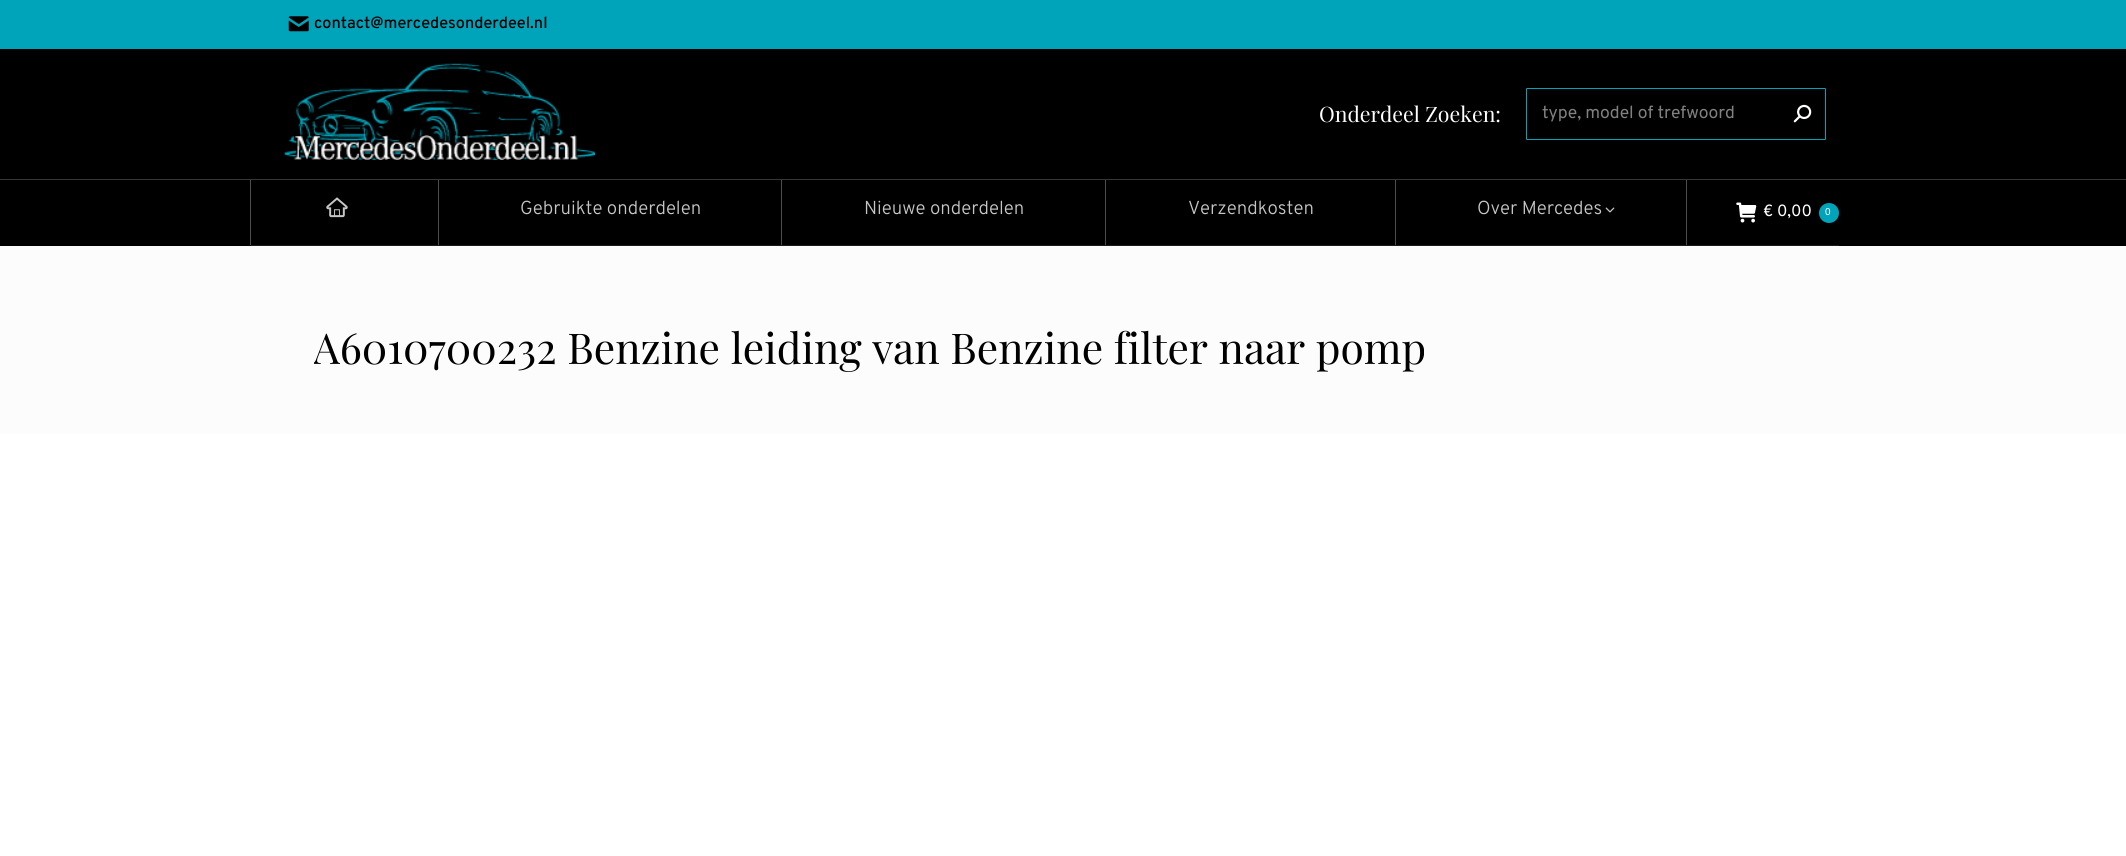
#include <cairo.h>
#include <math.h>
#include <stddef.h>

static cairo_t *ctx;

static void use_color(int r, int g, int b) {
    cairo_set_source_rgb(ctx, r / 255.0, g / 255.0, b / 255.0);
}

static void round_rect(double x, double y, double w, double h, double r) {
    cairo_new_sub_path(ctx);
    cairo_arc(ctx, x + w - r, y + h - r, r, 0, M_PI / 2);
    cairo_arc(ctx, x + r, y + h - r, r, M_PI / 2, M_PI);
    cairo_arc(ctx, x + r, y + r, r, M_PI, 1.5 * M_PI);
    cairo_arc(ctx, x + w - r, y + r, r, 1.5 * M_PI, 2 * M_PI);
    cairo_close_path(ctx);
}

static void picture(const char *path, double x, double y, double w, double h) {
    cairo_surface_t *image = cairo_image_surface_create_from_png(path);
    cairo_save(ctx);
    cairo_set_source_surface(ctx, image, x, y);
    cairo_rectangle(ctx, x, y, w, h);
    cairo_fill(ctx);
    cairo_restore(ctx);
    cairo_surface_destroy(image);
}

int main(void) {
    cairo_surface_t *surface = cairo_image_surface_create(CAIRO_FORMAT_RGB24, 2126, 856);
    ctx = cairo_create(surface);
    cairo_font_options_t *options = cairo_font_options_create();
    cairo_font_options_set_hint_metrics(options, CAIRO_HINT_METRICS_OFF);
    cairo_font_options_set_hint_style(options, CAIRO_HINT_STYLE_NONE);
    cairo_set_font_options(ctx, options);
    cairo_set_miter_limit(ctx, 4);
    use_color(255, 255, 255);
    cairo_paint(ctx);
    use_color(0, 0, 0);
    cairo_rectangle(ctx, 0, 49, 2126, 197);
    cairo_fill(ctx);
    use_color(0, 164, 186);
    cairo_rectangle(ctx, 0, 0, 2126, 49);
    cairo_fill(ctx);
    picture("img1.png", 288, 16, 21, 16);
    cairo_select_font_face(ctx, "Overpass Medium", CAIRO_FONT_SLANT_NORMAL, CAIRO_FONT_WEIGHT_NORMAL);
    cairo_set_font_size(ctx, 16.25);
    use_color(0, 0, 0);
    cairo_move_to(ctx, 314, 28);
    cairo_show_text(ctx, "contact@mercedesonderdeel.nl");
    picture("img2.png", 283, 63, 312, 97);
    cairo_select_font_face(ctx, "Playfair Display", CAIRO_FONT_SLANT_NORMAL, CAIRO_FONT_WEIGHT_NORMAL);
    cairo_set_font_size(ctx, 21.25);
    use_color(255, 255, 255);
    cairo_move_to(ctx, 1319, 122);
    cairo_show_text(ctx, "Onderdeel Zoeken:");
    round_rect(1526.5, 88.5, 299, 51, 0.5);
    use_color(0, 164, 186);
    cairo_set_line_width(ctx, 1);
    cairo_stroke(ctx);
    cairo_select_font_face(ctx, "Overpass", CAIRO_FONT_SLANT_NORMAL, CAIRO_FONT_WEIGHT_NORMAL);
    cairo_set_font_size(ctx, 17.5);
    use_color(128, 128, 128);
    cairo_move_to(ctx, 1542, 118);
    cairo_show_text(ctx, "type, model of trefwoord");
    picture("img3.png", 1793, 104, 19, 19);
    use_color(54, 54, 54);
    cairo_rectangle(ctx, 0, 179, 2126, 1);
    cairo_fill(ctx);
    use_color(77, 77, 77);
    cairo_rectangle(ctx, 250, 180, 1, 65);
    cairo_fill(ctx);
    picture("img4.png", 326, 197, 22, 21);
    cairo_rectangle(ctx, 438, 180, 1, 65);
    cairo_fill(ctx);
    cairo_select_font_face(ctx, "Overpass Light", CAIRO_FONT_SLANT_NORMAL, CAIRO_FONT_WEIGHT_NORMAL);
    cairo_set_font_size(ctx, 18.75);
    use_color(198, 198, 198);
    cairo_move_to(ctx, 520, 214);
    cairo_show_text(ctx, "Gebruikte onderdelen");
    use_color(77, 77, 77);
    cairo_rectangle(ctx, 781, 180, 1, 65);
    cairo_fill(ctx);
    use_color(198, 198, 198);
    cairo_move_to(ctx, 864, 214);
    cairo_show_text(ctx, "Nieuwe onderdelen");
    use_color(77, 77, 77);
    cairo_rectangle(ctx, 1105, 180, 1, 65);
    cairo_fill(ctx);
    use_color(198, 198, 198);
    cairo_move_to(ctx, 1188, 214);
    cairo_show_text(ctx, "Verzendkosten");
    use_color(77, 77, 77);
    cairo_rectangle(ctx, 1395, 180, 1, 65);
    cairo_fill(ctx);
    use_color(198, 198, 198);
    cairo_move_to(ctx, 1477, 214);
    cairo_show_text(ctx, "Over Mercedes");
    picture("img5.png", 1605, 207, 10, 6);
    use_color(77, 77, 77);
    cairo_rectangle(ctx, 1686, 180, 1, 65);
    cairo_fill(ctx);
    picture("img6.png", 1736, 202, 21, 21);
    cairo_select_font_face(ctx, "Overpass", CAIRO_FONT_SLANT_NORMAL, CAIRO_FONT_WEIGHT_NORMAL);
    cairo_set_font_size(ctx, 16.25);
    use_color(255, 255, 255);
    cairo_move_to(ctx, 1763, 216);
    cairo_show_text(ctx, "€ 0,00");
    use_color(0, 164, 186);
    cairo_new_path(ctx);
    cairo_arc(ctx, 1829, 213, 10, 0, 2 * M_PI);
    cairo_fill(ctx);
    cairo_select_font_face(ctx, "Liberation Sans", CAIRO_FONT_SLANT_NORMAL, CAIRO_FONT_WEIGHT_NORMAL);
    cairo_set_font_size(ctx, 10);
    use_color(255, 255, 255);
    cairo_move_to(ctx, 1825, 215);
    cairo_show_text(ctx, "0");
    use_color(28, 28, 28);
    cairo_rectangle(ctx, 251, 245, 1588, 1);
    cairo_fill(ctx);
    use_color(252, 252, 252);
    cairo_rectangle(ctx, 0, 246, 2126, 188);
    cairo_fill(ctx);
    cairo_save(ctx);
    cairo_rectangle(ctx, 314, 320, 1112, 53);
    cairo_clip(ctx);
    cairo_select_font_face(ctx, "Playfair Display", CAIRO_FONT_SLANT_NORMAL, CAIRO_FONT_WEIGHT_NORMAL);
    cairo_set_font_size(ctx, 42.5);
    use_color(0, 0, 0);
    cairo_move_to(ctx, 313, 364);
    cairo_show_text(ctx, "A6010700232 Benzine leiding van Benzine filter naar pomp");
    cairo_restore(ctx);
    cairo_surface_write_to_png(surface, "result.png");
    cairo_font_options_destroy(options);
    cairo_destroy(ctx);
    cairo_surface_destroy(surface);
    return 0;
}
